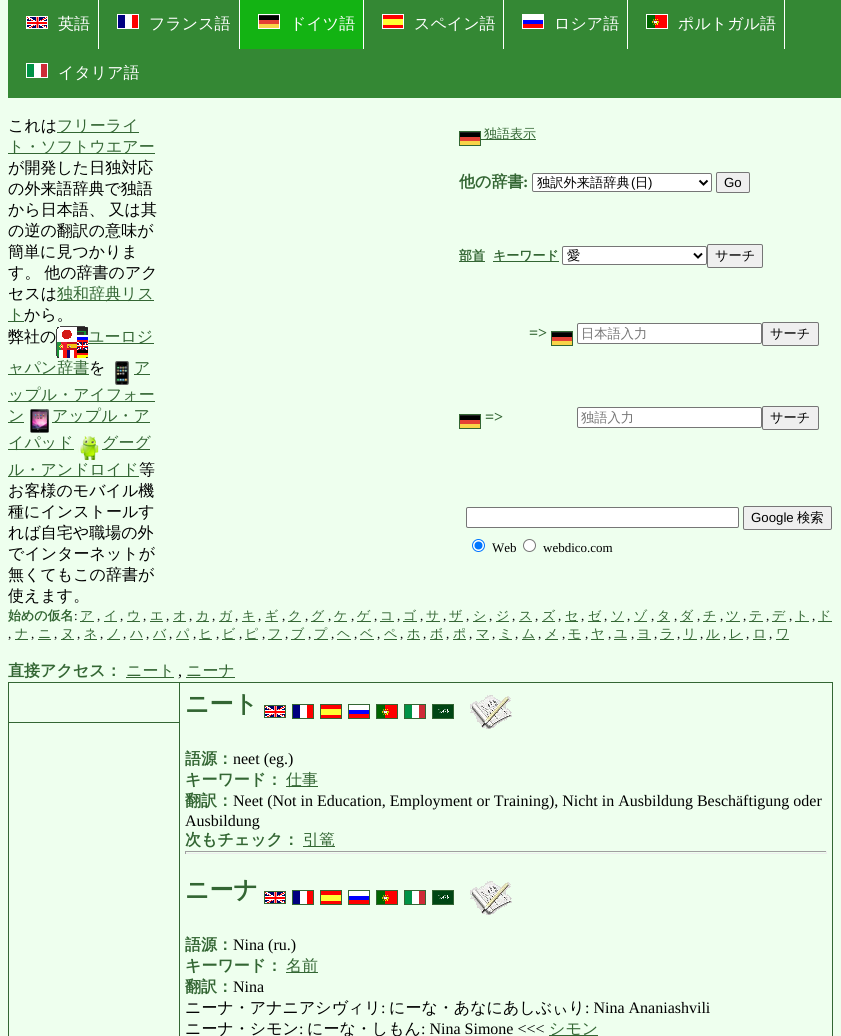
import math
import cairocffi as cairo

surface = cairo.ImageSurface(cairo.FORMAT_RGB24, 841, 1036)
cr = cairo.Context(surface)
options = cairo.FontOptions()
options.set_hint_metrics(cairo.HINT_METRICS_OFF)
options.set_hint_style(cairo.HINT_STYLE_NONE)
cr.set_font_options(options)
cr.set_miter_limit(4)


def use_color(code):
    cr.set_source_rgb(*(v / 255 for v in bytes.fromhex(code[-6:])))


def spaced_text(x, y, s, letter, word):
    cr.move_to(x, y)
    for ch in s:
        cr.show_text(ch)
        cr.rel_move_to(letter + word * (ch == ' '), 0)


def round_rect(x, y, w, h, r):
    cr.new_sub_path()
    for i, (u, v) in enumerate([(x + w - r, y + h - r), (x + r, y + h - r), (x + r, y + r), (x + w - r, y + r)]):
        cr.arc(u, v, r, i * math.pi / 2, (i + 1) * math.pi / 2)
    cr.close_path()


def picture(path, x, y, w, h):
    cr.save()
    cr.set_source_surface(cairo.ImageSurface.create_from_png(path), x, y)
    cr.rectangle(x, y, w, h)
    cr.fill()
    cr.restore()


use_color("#eeffee")
cr.paint()
use_color("#348834")
cr.rectangle(8, 0, 833, 98)
cr.fill()
use_color("#ffffff")
cr.rectangle(98, 0, 1, 49)
cr.fill()
cr.rectangle(26.5, 16.5, 21, 12)
cr.set_line_width(1)
cr.stroke()
cr.select_font_face("WenQuanYi Zen Hei Medium")
cr.set_font_size(16)
cr.move_to(58, 29)
cr.show_text("英語")
picture("img1.png", 27, 17, 20, 11)
cr.rectangle(239, 0, 1, 49)
cr.fill()
cr.rectangle(117.5, 14.5, 21, 14)
cr.stroke()
picture("img2.png", 118, 15, 20, 13)
cr.move_to(149, 29)
cr.show_text("フランス語")
cr.rectangle(363, 0, 1, 49)
cr.fill()
use_color("#13b313")
cr.rectangle(240, 0, 123, 49)
cr.fill()
cr.rectangle(258.5, 14.5, 21, 14)
use_color("#ffffff")
cr.stroke()
picture("img3.png", 259, 15, 20, 13)
cr.move_to(290, 29)
cr.show_text("ドイツ語")
cr.rectangle(503, 0, 1, 49)
cr.fill()
cr.rectangle(382.5, 14.5, 21, 14)
cr.stroke()
picture("img4.png", 383, 15, 20, 13)
cr.move_to(414, 29)
cr.show_text("スペイン語")
cr.rectangle(627, 0, 1, 49)
cr.fill()
cr.rectangle(522.5, 14.5, 21, 14)
cr.stroke()
picture("img5.png", 523, 15, 20, 13)
cr.move_to(554, 29)
cr.show_text("ロシア語")
cr.rectangle(784, 0, 1, 49)
cr.fill()
cr.rectangle(646.5, 14.5, 21, 14)
cr.stroke()
picture("img6.png", 647, 15, 20, 13)
cr.move_to(678, 29)
cr.show_text("ポルトガル語")
cr.rectangle(26.5, 63.5, 21, 14)
cr.stroke()
picture("img7.png", 27, 64, 20, 13)
cr.move_to(58, 78)
cr.show_text("イタリア語")
use_color("#000000")
cr.move_to(8, 131)
cr.show_text("これは")
use_color("#336633")
cr.rectangle(57, 132, 82, 1)
cr.fill()
cr.move_to(57, 131)
cr.show_text("フリーライ")
cr.rectangle(8, 153, 147, 1)
cr.fill()
cr.move_to(8, 152)
cr.show_text("ト・ソフトウエアー")
use_color("#000000")
cr.move_to(8, 173)
cr.show_text("が開発した日独対応")
cr.move_to(8, 194)
cr.show_text("の外来語辞典で独語")
spaced_text(8, 215, "から日本語、 又は其", 0, -1)
cr.move_to(8, 236)
cr.show_text("の逆の翻訳の意味が")
cr.move_to(8, 257)
cr.show_text("簡単に見つかりま")
spaced_text(8, 278, "す。 他の辞書のアク", 0, -1)
cr.move_to(8, 299)
cr.show_text("セスは")
use_color("#336633")
cr.rectangle(57, 300, 97, 1)
cr.fill()
cr.move_to(57, 299)
cr.show_text("独和辞典リス")
cr.rectangle(8, 321, 16, 1)
cr.fill()
cr.move_to(8, 320)
cr.show_text("ト")
use_color("#000000")
cr.move_to(24, 320)
cr.show_text("から。")
cr.move_to(8, 342)
cr.show_text("弊社の")
picture("img8.png", 56, 326, 32, 32)
use_color("#336633")
cr.rectangle(88, 343, 66, 1)
cr.fill()
cr.move_to(88, 342)
cr.show_text("ユーロジ")
cr.rectangle(8, 374, 81, 1)
cr.fill()
cr.move_to(8, 373)
cr.show_text("ャパン辞書")
use_color("#000000")
cr.move_to(89, 373)
cr.show_text("を")
picture("img9.png", 115, 361, 14, 24)
use_color("#336633")
cr.rectangle(134, 374, 16, 1)
cr.fill()
cr.move_to(134, 373)
cr.show_text("ア")
cr.rectangle(8, 401, 147, 1)
cr.fill()
cr.move_to(8, 400)
cr.show_text("ップル・アイフォー")
cr.rectangle(8, 422, 16, 1)
cr.fill()
cr.move_to(8, 421)
cr.show_text("ン")
picture("img10.png", 30, 409, 19, 24)
cr.rectangle(52, 422, 98, 1)
cr.fill()
cr.move_to(52, 421)
cr.show_text("アップル・ア")
cr.rectangle(8, 449, 66, 1)
cr.fill()
cr.move_to(8, 448)
cr.show_text("イパッド")
picture("img11.png", 78, 436, 21, 24)
cr.rectangle(102, 449, 48, 1)
cr.fill()
cr.move_to(102, 448)
cr.show_text("グーグ")
cr.rectangle(8, 476, 131, 1)
cr.fill()
cr.move_to(8, 475)
cr.show_text("ル・アンドロイド")
use_color("#000000")
cr.move_to(139, 475)
cr.show_text("等")
cr.move_to(8, 496)
cr.show_text("お客様のモバイル機")
cr.move_to(8, 517)
cr.show_text("種にインストールす")
cr.move_to(8, 538)
cr.show_text("れば自宅や職場の外")
cr.move_to(8, 559)
cr.show_text("でインターネットが")
cr.move_to(8, 580)
cr.show_text("無くてもこの辞書が")
cr.move_to(8, 601)
cr.show_text("使えます。")
cr.rectangle(459.5, 131.5, 21, 14)
use_color("#336633")
cr.stroke()
picture("img3.png", 460, 132, 20, 13)
cr.rectangle(481, 139, 55, 1)
cr.fill()
cr.set_font_size(13)
cr.move_to(484, 138)
cr.show_text("独語表示")
cr.select_font_face("WenQuanYi Zen Hei", cairo.FONT_SLANT_NORMAL, cairo.FONT_WEIGHT_BOLD)
cr.set_font_size(16)
cr.move_to(459, 187)
cr.show_text("他の辞書")
cr.select_font_face("Liberation Serif", cairo.FONT_SLANT_NORMAL, cairo.FONT_WEIGHT_BOLD)
cr.move_to(523, 187)
cr.show_text(":")
use_color("#ffffff")
round_rect(532.5, 173.5, 179, 18, 1.5)
cr.fill_preserve()
use_color("#767676")
cr.stroke()
cr.new_path()
cr.move_to(699.5, 180.5)
cr.line_to(703.5, 184.5)
cr.line_to(707.5, 180.5)
use_color("#000000")
cr.set_line_width(2)
cr.stroke()
cr.select_font_face("WenQuanYi Zen Hei Medium")
cr.set_font_size(13.25)
cr.move_to(537, 187)
cr.show_text("独訳外来語辞典")
cr.select_font_face("Liberation Sans")
cr.move_to(631, 187)
cr.show_text("(")
cr.select_font_face("WenQuanYi Zen Hei Medium")
cr.move_to(635, 187)
cr.show_text("日")
cr.select_font_face("Liberation Sans")
cr.move_to(648, 187)
cr.show_text(")")
use_color("#efefef")
round_rect(716.5, 172.5, 33, 20, 1.5)
cr.fill_preserve()
use_color("#767676")
cr.set_line_width(1)
cr.stroke()
use_color("#000000")
cr.move_to(724, 187)
cr.show_text("Go")
use_color("#336633")
cr.rectangle(459, 261, 26, 1)
cr.fill()
cr.select_font_face("WenQuanYi Zen Hei", cairo.FONT_SLANT_NORMAL, cairo.FONT_WEIGHT_BOLD)
cr.set_font_size(13)
cr.move_to(459, 260)
cr.show_text("部首")
cr.rectangle(493, 261, 66, 1)
cr.fill()
cr.move_to(493, 260)
cr.show_text("キーワード")
use_color("#ffffff")
round_rect(562.5, 246.5, 144, 18, 1.5)
cr.fill_preserve()
use_color("#767676")
cr.stroke()
cr.new_path()
cr.move_to(694, 253.5)
cr.line_to(698, 257.5)
cr.line_to(702, 253.5)
use_color("#000000")
cr.set_line_width(2)
cr.stroke()
cr.select_font_face("WenQuanYi Zen Hei Medium")
cr.set_font_size(13.25)
cr.move_to(567, 260)
cr.show_text("愛")
use_color("#efefef")
round_rect(707.5, 244.5, 55, 23, 1.5)
cr.fill_preserve()
use_color("#767676")
cr.set_line_width(1)
cr.stroke()
use_color("#000000")
cr.move_to(715, 260)
cr.show_text("サーチ")
cr.select_font_face("Liberation Serif", cairo.FONT_SLANT_NORMAL, cairo.FONT_WEIGHT_BOLD)
cr.set_font_size(16)
use_color("#336633")
cr.move_to(529, 338)
cr.show_text("=>")
cr.rectangle(551.5, 331.5, 21, 14)
cr.stroke()
picture("img3.png", 552, 332, 20, 13)
use_color("#ffffff")
round_rect(577.5, 323.5, 184, 20, 1.5)
cr.fill_preserve()
use_color("#767676")
cr.stroke()
cr.select_font_face("WenQuanYi Zen Hei Medium")
cr.set_font_size(13.25)
use_color("#757575")
cr.move_to(581, 338)
cr.show_text("日本語入力")
use_color("#efefef")
round_rect(762.5, 322.5, 56, 23, 1.5)
cr.fill_preserve()
use_color("#767676")
cr.stroke()
use_color("#000000")
cr.move_to(770, 338)
cr.show_text("サーチ")
cr.rectangle(459.5, 414.5, 21, 14)
use_color("#336633")
cr.stroke()
picture("img3.png", 460, 415, 20, 13)
cr.select_font_face("Liberation Serif", cairo.FONT_SLANT_NORMAL, cairo.FONT_WEIGHT_BOLD)
cr.set_font_size(16)
cr.move_to(485, 422)
cr.show_text("=>")
use_color("#ffffff")
round_rect(577.5, 407.5, 184, 20, 1.5)
cr.fill_preserve()
use_color("#767676")
cr.stroke()
cr.select_font_face("WenQuanYi Zen Hei Medium")
cr.set_font_size(13.25)
use_color("#757575")
cr.move_to(581, 422)
cr.show_text("独語入力")
use_color("#efefef")
round_rect(762.5, 406.5, 56, 23, 1.5)
cr.fill_preserve()
use_color("#767676")
cr.stroke()
use_color("#000000")
cr.move_to(770, 422)
cr.show_text("サーチ")
use_color("#ffffff")
round_rect(466.5, 507.5, 272, 20, 1.5)
cr.fill_preserve()
use_color("#767676")
cr.stroke()
use_color("#efefef")
round_rect(743.5, 506.5, 88, 23, 1.5)
cr.fill_preserve()
use_color("#767676")
cr.stroke()
cr.select_font_face("Liberation Sans")
use_color("#000000")
cr.move_to(751, 522)
cr.show_text("Google")
cr.select_font_face("WenQuanYi Zen Hei Medium")
cr.move_to(797, 522)
cr.show_text("検索")
use_color("#ffffff")
cr.new_path()
cr.arc(478.5, 545.5, 6, 0, 2 * math.pi)
cr.fill_preserve()
use_color("#0075ff")
cr.stroke()
cr.arc(478.5, 545.5, 4, 0, 2 * math.pi)
cr.fill()
cr.select_font_face("Liberation Serif")
cr.set_font_size(13)
use_color("#000000")
cr.move_to(492, 552)
cr.show_text("Web")
use_color("#ffffff")
cr.new_path()
cr.arc(529.5, 545.5, 6, 0, 2 * math.pi)
cr.fill_preserve()
use_color("#767676")
cr.stroke()
use_color("#000000")
cr.move_to(543, 552)
cr.show_text("webdico.com")
cr.select_font_face("WenQuanYi Zen Hei", cairo.FONT_SLANT_NORMAL, cairo.FONT_WEIGHT_BOLD)
use_color("#336633")
cr.move_to(8, 620)
cr.show_text("始めの仮名")
cr.select_font_face("Liberation Serif")
use_color("#000000")
cr.move_to(74, 620)
cr.show_text(":")
use_color("#336633")
cr.rectangle(80, 621, 14, 1)
cr.fill()
cr.select_font_face("WenQuanYi Zen Hei Medium")
cr.move_to(80, 620)
cr.show_text("ア")
cr.select_font_face("Liberation Serif")
use_color("#000000")
cr.move_to(97, 620)
cr.show_text(",")
use_color("#336633")
cr.rectangle(104, 621, 13, 1)
cr.fill()
cr.select_font_face("WenQuanYi Zen Hei Medium")
cr.move_to(104, 620)
cr.show_text("イ")
cr.select_font_face("Liberation Serif")
use_color("#000000")
cr.move_to(120, 620)
cr.show_text(",")
use_color("#336633")
cr.rectangle(127, 621, 13, 1)
cr.fill()
cr.select_font_face("WenQuanYi Zen Hei Medium")
cr.move_to(127, 620)
cr.show_text("ウ")
cr.select_font_face("Liberation Serif")
use_color("#000000")
cr.move_to(143, 620)
cr.show_text(",")
cr.select_font_face("WenQuanYi Zen Hei Medium")
use_color("#336633")
cr.move_to(150, 620)
cr.show_text("エ")
cr.select_font_face("Liberation Serif")
use_color("#000000")
cr.move_to(166, 620)
cr.show_text(",")
use_color("#336633")
cr.rectangle(150, 621, 13, 1)
cr.fill()
cr.rectangle(173, 621, 13, 1)
cr.fill()
cr.select_font_face("WenQuanYi Zen Hei Medium")
cr.move_to(173, 620)
cr.show_text("オ")
cr.select_font_face("Liberation Serif")
use_color("#000000")
cr.move_to(189, 620)
cr.show_text(",")
use_color("#336633")
cr.rectangle(196, 621, 13, 1)
cr.fill()
cr.select_font_face("WenQuanYi Zen Hei Medium")
cr.move_to(196, 620)
cr.show_text("カ")
cr.select_font_face("Liberation Serif")
use_color("#000000")
cr.move_to(212, 620)
cr.show_text(",")
use_color("#336633")
cr.rectangle(219, 621, 13, 1)
cr.fill()
cr.select_font_face("WenQuanYi Zen Hei Medium")
cr.move_to(219, 620)
cr.show_text("ガ")
cr.select_font_face("Liberation Serif")
use_color("#000000")
cr.move_to(235, 620)
cr.show_text(",")
use_color("#336633")
cr.rectangle(242, 621, 13, 1)
cr.fill()
cr.select_font_face("WenQuanYi Zen Hei Medium")
cr.move_to(242, 620)
cr.show_text("キ")
cr.select_font_face("Liberation Serif")
use_color("#000000")
cr.move_to(258, 620)
cr.show_text(",")
use_color("#336633")
cr.rectangle(265, 621, 13, 1)
cr.fill()
cr.select_font_face("WenQuanYi Zen Hei Medium")
cr.move_to(265, 620)
cr.show_text("ギ")
cr.select_font_face("Liberation Serif")
use_color("#000000")
cr.move_to(282, 620)
cr.show_text(",")
use_color("#336633")
cr.rectangle(288, 621, 13, 1)
cr.fill()
cr.select_font_face("WenQuanYi Zen Hei Medium")
cr.move_to(288, 620)
cr.show_text("ク")
cr.select_font_face("Liberation Serif")
use_color("#000000")
cr.move_to(305, 620)
cr.show_text(",")
use_color("#336633")
cr.rectangle(311, 621, 13, 1)
cr.fill()
cr.select_font_face("WenQuanYi Zen Hei Medium")
cr.move_to(311, 620)
cr.show_text("グ")
cr.select_font_face("Liberation Serif")
use_color("#000000")
cr.move_to(328, 620)
cr.show_text(",")
use_color("#336633")
cr.rectangle(334, 621, 13, 1)
cr.fill()
cr.select_font_face("WenQuanYi Zen Hei Medium")
cr.move_to(334, 620)
cr.show_text("ケ")
cr.select_font_face("Liberation Serif")
use_color("#000000")
cr.move_to(351, 620)
cr.show_text(",")
use_color("#336633")
cr.rectangle(357, 621, 14, 1)
cr.fill()
cr.select_font_face("WenQuanYi Zen Hei Medium")
cr.move_to(357, 620)
cr.show_text("ゲ")
cr.select_font_face("Liberation Serif")
use_color("#000000")
cr.move_to(374, 620)
cr.show_text(",")
use_color("#336633")
cr.rectangle(380, 621, 14, 1)
cr.fill()
cr.select_font_face("WenQuanYi Zen Hei Medium")
cr.move_to(380, 620)
cr.show_text("コ")
cr.select_font_face("Liberation Serif")
use_color("#000000")
cr.move_to(397, 620)
cr.show_text(",")
use_color("#336633")
cr.rectangle(403, 621, 14, 1)
cr.fill()
cr.select_font_face("WenQuanYi Zen Hei Medium")
cr.move_to(403, 620)
cr.show_text("ゴ")
cr.select_font_face("Liberation Serif")
use_color("#000000")
cr.move_to(420, 620)
cr.show_text(",")
use_color("#336633")
cr.rectangle(426, 621, 14, 1)
cr.fill()
cr.select_font_face("WenQuanYi Zen Hei Medium")
cr.move_to(426, 620)
cr.show_text("サ")
cr.select_font_face("Liberation Serif")
use_color("#000000")
cr.move_to(443, 620)
cr.show_text(",")
use_color("#336633")
cr.rectangle(449, 621, 14, 1)
cr.fill()
cr.select_font_face("WenQuanYi Zen Hei Medium")
cr.move_to(449, 620)
cr.show_text("ザ")
cr.select_font_face("Liberation Serif")
use_color("#000000")
cr.move_to(466, 620)
cr.show_text(",")
use_color("#336633")
cr.rectangle(473, 621, 13, 1)
cr.fill()
cr.select_font_face("WenQuanYi Zen Hei Medium")
cr.move_to(473, 620)
cr.show_text("シ")
cr.select_font_face("Liberation Serif")
use_color("#000000")
cr.move_to(489, 620)
cr.show_text(",")
use_color("#336633")
cr.rectangle(496, 621, 13, 1)
cr.fill()
cr.select_font_face("WenQuanYi Zen Hei Medium")
cr.move_to(496, 620)
cr.show_text("ジ")
cr.select_font_face("Liberation Serif")
use_color("#000000")
cr.move_to(512, 620)
cr.show_text(",")
cr.select_font_face("WenQuanYi Zen Hei Medium")
use_color("#336633")
cr.move_to(519, 620)
cr.show_text("ス")
cr.select_font_face("Liberation Serif")
use_color("#000000")
cr.move_to(535, 620)
cr.show_text(",")
use_color("#336633")
cr.rectangle(519, 621, 13, 1)
cr.fill()
cr.select_font_face("WenQuanYi Zen Hei Medium")
cr.move_to(542, 620)
cr.show_text("ズ")
cr.select_font_face("Liberation Serif")
use_color("#000000")
cr.move_to(558, 620)
cr.show_text(",")
use_color("#336633")
cr.rectangle(542, 621, 13, 1)
cr.fill()
cr.rectangle(565, 621, 13, 1)
cr.fill()
cr.select_font_face("WenQuanYi Zen Hei Medium")
cr.move_to(565, 620)
cr.show_text("セ")
cr.select_font_face("Liberation Serif")
use_color("#000000")
cr.move_to(581, 620)
cr.show_text(",")
use_color("#336633")
cr.rectangle(588, 621, 13, 1)
cr.fill()
cr.select_font_face("WenQuanYi Zen Hei Medium")
cr.move_to(588, 620)
cr.show_text("ゼ")
cr.select_font_face("Liberation Serif")
use_color("#000000")
cr.move_to(604, 620)
cr.show_text(",")
use_color("#336633")
cr.rectangle(611, 621, 13, 1)
cr.fill()
cr.select_font_face("WenQuanYi Zen Hei Medium")
cr.move_to(611, 620)
cr.show_text("ソ")
cr.select_font_face("Liberation Serif")
use_color("#000000")
cr.move_to(627, 620)
cr.show_text(",")
use_color("#336633")
cr.rectangle(634, 621, 13, 1)
cr.fill()
cr.select_font_face("WenQuanYi Zen Hei Medium")
cr.move_to(634, 620)
cr.show_text("ゾ")
cr.select_font_face("Liberation Serif")
use_color("#000000")
cr.move_to(651, 620)
cr.show_text(",")
use_color("#336633")
cr.rectangle(657, 621, 13, 1)
cr.fill()
cr.select_font_face("WenQuanYi Zen Hei Medium")
cr.move_to(657, 620)
cr.show_text("タ")
cr.select_font_face("Liberation Serif")
use_color("#000000")
cr.move_to(674, 620)
cr.show_text(",")
use_color("#336633")
cr.rectangle(680, 621, 13, 1)
cr.fill()
cr.select_font_face("WenQuanYi Zen Hei Medium")
cr.move_to(680, 620)
cr.show_text("ダ")
cr.select_font_face("Liberation Serif")
use_color("#000000")
cr.move_to(697, 620)
cr.show_text(",")
use_color("#336633")
cr.rectangle(703, 621, 13, 1)
cr.fill()
cr.select_font_face("WenQuanYi Zen Hei Medium")
cr.move_to(703, 620)
cr.show_text("チ")
cr.select_font_face("Liberation Serif")
use_color("#000000")
cr.move_to(720, 620)
cr.show_text(",")
use_color("#336633")
cr.rectangle(726, 621, 14, 1)
cr.fill()
cr.select_font_face("WenQuanYi Zen Hei Medium")
cr.move_to(726, 620)
cr.show_text("ツ")
cr.select_font_face("Liberation Serif")
use_color("#000000")
cr.move_to(743, 620)
cr.show_text(",")
use_color("#336633")
cr.rectangle(749, 621, 14, 1)
cr.fill()
cr.select_font_face("WenQuanYi Zen Hei Medium")
cr.move_to(749, 620)
cr.show_text("テ")
cr.select_font_face("Liberation Serif")
use_color("#000000")
cr.move_to(766, 620)
cr.show_text(",")
use_color("#336633")
cr.rectangle(772, 621, 14, 1)
cr.fill()
cr.select_font_face("WenQuanYi Zen Hei Medium")
cr.move_to(772, 620)
cr.show_text("デ")
cr.select_font_face("Liberation Serif")
use_color("#000000")
cr.move_to(789, 620)
cr.show_text(",")
use_color("#336633")
cr.rectangle(795, 621, 14, 1)
cr.fill()
cr.select_font_face("WenQuanYi Zen Hei Medium")
cr.move_to(795, 620)
cr.show_text("ト")
cr.select_font_face("Liberation Serif")
use_color("#000000")
cr.move_to(812, 620)
cr.show_text(",")
use_color("#336633")
cr.rectangle(818, 621, 14, 1)
cr.fill()
cr.select_font_face("WenQuanYi Zen Hei Medium")
cr.move_to(818, 620)
cr.show_text("ド")
cr.select_font_face("Liberation Serif")
use_color("#000000")
cr.move_to(8, 638)
cr.show_text(",")
use_color("#336633")
cr.rectangle(15, 639, 13, 1)
cr.fill()
cr.select_font_face("WenQuanYi Zen Hei Medium")
cr.move_to(15, 638)
cr.show_text("ナ")
cr.select_font_face("Liberation Serif")
use_color("#000000")
cr.move_to(31, 638)
cr.show_text(",")
cr.select_font_face("WenQuanYi Zen Hei Medium")
use_color("#336633")
cr.move_to(38, 638)
cr.show_text("ニ")
cr.select_font_face("Liberation Serif")
use_color("#000000")
cr.move_to(54, 638)
cr.show_text(",")
use_color("#336633")
cr.rectangle(38, 639, 13, 1)
cr.fill()
cr.rectangle(61, 639, 13, 1)
cr.fill()
cr.select_font_face("WenQuanYi Zen Hei Medium")
cr.move_to(61, 638)
cr.show_text("ヌ")
cr.select_font_face("Liberation Serif")
use_color("#000000")
cr.move_to(77, 638)
cr.show_text(",")
use_color("#336633")
cr.rectangle(84, 639, 13, 1)
cr.fill()
cr.select_font_face("WenQuanYi Zen Hei Medium")
cr.move_to(84, 638)
cr.show_text("ネ")
cr.select_font_face("Liberation Serif")
use_color("#000000")
cr.move_to(100, 638)
cr.show_text(",")
use_color("#336633")
cr.rectangle(107, 639, 13, 1)
cr.fill()
cr.select_font_face("WenQuanYi Zen Hei Medium")
cr.move_to(107, 638)
cr.show_text("ノ")
cr.select_font_face("Liberation Serif")
use_color("#000000")
cr.move_to(123, 638)
cr.show_text(",")
cr.select_font_face("WenQuanYi Zen Hei Medium")
use_color("#336633")
cr.move_to(130, 638)
cr.show_text("ハ")
cr.select_font_face("Liberation Serif")
use_color("#000000")
cr.move_to(146, 638)
cr.show_text(",")
use_color("#336633")
cr.rectangle(130, 639, 13, 1)
cr.fill()
cr.select_font_face("WenQuanYi Zen Hei Medium")
cr.move_to(153, 638)
cr.show_text("バ")
cr.select_font_face("Liberation Serif")
use_color("#000000")
cr.move_to(169, 638)
cr.show_text(",")
use_color("#336633")
cr.rectangle(153, 639, 13, 1)
cr.fill()
cr.rectangle(176, 639, 13, 1)
cr.fill()
cr.select_font_face("WenQuanYi Zen Hei Medium")
cr.move_to(176, 638)
cr.show_text("パ")
cr.select_font_face("Liberation Serif")
use_color("#000000")
cr.move_to(193, 638)
cr.show_text(",")
use_color("#336633")
cr.rectangle(199, 639, 13, 1)
cr.fill()
cr.select_font_face("WenQuanYi Zen Hei Medium")
cr.move_to(199, 638)
cr.show_text("ヒ")
cr.select_font_face("Liberation Serif")
use_color("#000000")
cr.move_to(216, 638)
cr.show_text(",")
use_color("#336633")
cr.rectangle(222, 639, 13, 1)
cr.fill()
cr.select_font_face("WenQuanYi Zen Hei Medium")
cr.move_to(222, 638)
cr.show_text("ビ")
cr.select_font_face("Liberation Serif")
use_color("#000000")
cr.move_to(239, 638)
cr.show_text(",")
use_color("#336633")
cr.rectangle(245, 639, 13, 1)
cr.fill()
cr.select_font_face("WenQuanYi Zen Hei Medium")
cr.move_to(245, 638)
cr.show_text("ピ")
cr.select_font_face("Liberation Serif")
use_color("#000000")
cr.move_to(262, 638)
cr.show_text(",")
use_color("#336633")
cr.rectangle(268, 639, 14, 1)
cr.fill()
cr.select_font_face("WenQuanYi Zen Hei Medium")
cr.move_to(268, 638)
cr.show_text("フ")
cr.select_font_face("Liberation Serif")
use_color("#000000")
cr.move_to(285, 638)
cr.show_text(",")
use_color("#336633")
cr.rectangle(291, 639, 14, 1)
cr.fill()
cr.select_font_face("WenQuanYi Zen Hei Medium")
cr.move_to(291, 638)
cr.show_text("ブ")
cr.select_font_face("Liberation Serif")
use_color("#000000")
cr.move_to(308, 638)
cr.show_text(",")
use_color("#336633")
cr.rectangle(314, 639, 14, 1)
cr.fill()
cr.select_font_face("WenQuanYi Zen Hei Medium")
cr.move_to(314, 638)
cr.show_text("プ")
cr.select_font_face("Liberation Serif")
use_color("#000000")
cr.move_to(331, 638)
cr.show_text(",")
use_color("#336633")
cr.rectangle(337, 639, 14, 1)
cr.fill()
cr.select_font_face("WenQuanYi Zen Hei Medium")
cr.move_to(337, 638)
cr.show_text("ヘ")
cr.select_font_face("Liberation Serif")
use_color("#000000")
cr.move_to(354, 638)
cr.show_text(",")
use_color("#336633")
cr.rectangle(360, 639, 14, 1)
cr.fill()
cr.select_font_face("WenQuanYi Zen Hei Medium")
cr.move_to(360, 638)
cr.show_text("ベ")
cr.select_font_face("Liberation Serif")
use_color("#000000")
cr.move_to(377, 638)
cr.show_text(",")
cr.select_font_face("WenQuanYi Zen Hei Medium")
use_color("#336633")
cr.move_to(384, 638)
cr.show_text("ペ")
cr.select_font_face("Liberation Serif")
use_color("#000000")
cr.move_to(400, 638)
cr.show_text(",")
use_color("#336633")
cr.rectangle(384, 639, 13, 1)
cr.fill()
cr.rectangle(407, 639, 13, 1)
cr.fill()
cr.select_font_face("WenQuanYi Zen Hei Medium")
cr.move_to(407, 638)
cr.show_text("ホ")
cr.select_font_face("Liberation Serif")
use_color("#000000")
cr.move_to(423, 638)
cr.show_text(",")
use_color("#336633")
cr.rectangle(430, 639, 13, 1)
cr.fill()
cr.select_font_face("WenQuanYi Zen Hei Medium")
cr.move_to(430, 638)
cr.show_text("ボ")
cr.select_font_face("Liberation Serif")
use_color("#000000")
cr.move_to(446, 638)
cr.show_text(",")
use_color("#336633")
cr.rectangle(453, 639, 13, 1)
cr.fill()
cr.select_font_face("WenQuanYi Zen Hei Medium")
cr.move_to(453, 638)
cr.show_text("ポ")
cr.select_font_face("Liberation Serif")
use_color("#000000")
cr.move_to(469, 638)
cr.show_text(",")
cr.select_font_face("WenQuanYi Zen Hei Medium")
use_color("#336633")
cr.move_to(476, 638)
cr.show_text("マ")
cr.select_font_face("Liberation Serif")
use_color("#000000")
cr.move_to(492, 638)
cr.show_text(",")
use_color("#336633")
cr.rectangle(476, 639, 13, 1)
cr.fill()
cr.rectangle(499, 639, 13, 1)
cr.fill()
cr.select_font_face("WenQuanYi Zen Hei Medium")
cr.move_to(499, 638)
cr.show_text("ミ")
cr.select_font_face("Liberation Serif")
use_color("#000000")
cr.move_to(515, 638)
cr.show_text(",")
cr.select_font_face("WenQuanYi Zen Hei Medium")
use_color("#336633")
cr.move_to(522, 638)
cr.show_text("ム")
cr.select_font_face("Liberation Serif")
use_color("#000000")
cr.move_to(538, 638)
cr.show_text(",")
use_color("#336633")
cr.rectangle(522, 639, 13, 1)
cr.fill()
cr.rectangle(545, 639, 13, 1)
cr.fill()
cr.select_font_face("WenQuanYi Zen Hei Medium")
cr.move_to(545, 638)
cr.show_text("メ")
cr.select_font_face("Liberation Serif")
use_color("#000000")
cr.move_to(562, 638)
cr.show_text(",")
use_color("#336633")
cr.rectangle(568, 639, 13, 1)
cr.fill()
cr.select_font_face("WenQuanYi Zen Hei Medium")
cr.move_to(568, 638)
cr.show_text("モ")
cr.select_font_face("Liberation Serif")
use_color("#000000")
cr.move_to(585, 638)
cr.show_text(",")
use_color("#336633")
cr.rectangle(591, 639, 13, 1)
cr.fill()
cr.select_font_face("WenQuanYi Zen Hei Medium")
cr.move_to(591, 638)
cr.show_text("ヤ")
cr.select_font_face("Liberation Serif")
use_color("#000000")
cr.move_to(608, 638)
cr.show_text(",")
use_color("#336633")
cr.rectangle(614, 639, 13, 1)
cr.fill()
cr.select_font_face("WenQuanYi Zen Hei Medium")
cr.move_to(614, 638)
cr.show_text("ユ")
cr.select_font_face("Liberation Serif")
use_color("#000000")
cr.move_to(631, 638)
cr.show_text(",")
use_color("#336633")
cr.rectangle(637, 639, 14, 1)
cr.fill()
cr.select_font_face("WenQuanYi Zen Hei Medium")
cr.move_to(637, 638)
cr.show_text("ヨ")
cr.select_font_face("Liberation Serif")
use_color("#000000")
cr.move_to(654, 638)
cr.show_text(",")
use_color("#336633")
cr.rectangle(660, 639, 14, 1)
cr.fill()
cr.select_font_face("WenQuanYi Zen Hei Medium")
cr.move_to(660, 638)
cr.show_text("ラ")
cr.select_font_face("Liberation Serif")
use_color("#000000")
cr.move_to(677, 638)
cr.show_text(",")
use_color("#336633")
cr.rectangle(683, 639, 14, 1)
cr.fill()
cr.select_font_face("WenQuanYi Zen Hei Medium")
cr.move_to(683, 638)
cr.show_text("リ")
cr.select_font_face("Liberation Serif")
use_color("#000000")
cr.move_to(700, 638)
cr.show_text(",")
use_color("#336633")
cr.rectangle(706, 639, 14, 1)
cr.fill()
cr.select_font_face("WenQuanYi Zen Hei Medium")
cr.move_to(706, 638)
cr.show_text("ル")
cr.select_font_face("Liberation Serif")
use_color("#000000")
cr.move_to(723, 638)
cr.show_text(",")
use_color("#336633")
cr.rectangle(729, 639, 14, 1)
cr.fill()
cr.select_font_face("WenQuanYi Zen Hei Medium")
cr.move_to(729, 638)
cr.show_text("レ")
cr.select_font_face("Liberation Serif")
use_color("#000000")
cr.move_to(746, 638)
cr.show_text(",")
cr.select_font_face("WenQuanYi Zen Hei Medium")
use_color("#336633")
cr.move_to(753, 638)
cr.show_text("ロ")
cr.select_font_face("Liberation Serif")
use_color("#000000")
cr.move_to(769, 638)
cr.show_text(",")
use_color("#336633")
cr.rectangle(753, 639, 13, 1)
cr.fill()
cr.rectangle(776, 639, 13, 1)
cr.fill()
cr.select_font_face("WenQuanYi Zen Hei Medium")
cr.move_to(776, 638)
cr.show_text("ワ")
cr.select_font_face("WenQuanYi Zen Hei", cairo.FONT_SLANT_NORMAL, cairo.FONT_WEIGHT_BOLD)
cr.set_font_size(16)
cr.move_to(8, 676)
cr.show_text("直接アクセス：")
cr.rectangle(126, 677, 48, 1)
cr.fill()
cr.select_font_face("WenQuanYi Zen Hei Medium")
cr.move_to(126, 676)
cr.show_text("ニート")
cr.select_font_face("Liberation Serif")
use_color("#000000")
cr.move_to(178, 676)
cr.show_text(",")
use_color("#336633")
cr.rectangle(186, 677, 49, 1)
cr.fill()
cr.select_font_face("WenQuanYi Zen Hei Medium")
cr.move_to(186, 676)
cr.show_text("ニーナ")
cr.rectangle(8, 682, 825, 1)
cr.fill()
cr.rectangle(832, 682, 1, 354)
cr.fill()
cr.rectangle(8, 682, 1, 354)
cr.fill()
cr.rectangle(8, 722, 172, 1)
cr.fill()
cr.rectangle(179, 682, 1, 354)
cr.fill()
cr.select_font_face("WenQuanYi Zen Hei", cairo.FONT_SLANT_NORMAL, cairo.FONT_WEIGHT_BOLD)
cr.set_font_size(24)
cr.move_to(185, 712)
cr.show_text("ニート")
cr.rectangle(264.5, 705.5, 21, 12)
cr.stroke()
cr.rectangle(292.5, 704.5, 21, 14)
cr.stroke()
cr.rectangle(320.5, 704.5, 21, 14)
cr.stroke()
cr.rectangle(348.5, 704.5, 21, 14)
cr.stroke()
cr.rectangle(376.5, 704.5, 21, 14)
cr.stroke()
cr.rectangle(404.5, 704.5, 21, 14)
cr.stroke()
cr.rectangle(432.5, 704.5, 21, 14)
cr.stroke()
picture("img12.png", 470, 695, 42, 34)
picture("img1.png", 265, 706, 20, 11)
picture("img2.png", 293, 705, 20, 13)
picture("img4.png", 321, 705, 20, 13)
picture("img5.png", 349, 705, 20, 13)
picture("img6.png", 377, 705, 20, 13)
picture("img7.png", 405, 705, 20, 13)
picture("img13.png", 433, 705, 20, 13)
cr.set_font_size(16)
cr.move_to(185, 764)
cr.show_text("語源：")
cr.select_font_face("Liberation Serif")
use_color("#000000")
cr.move_to(233, 764)
cr.show_text("neet (eg.)")
cr.select_font_face("WenQuanYi Zen Hei", cairo.FONT_SLANT_NORMAL, cairo.FONT_WEIGHT_BOLD)
use_color("#336633")
cr.move_to(185, 785)
cr.show_text("キーワード：")
cr.rectangle(286, 786, 32, 1)
cr.fill()
cr.select_font_face("WenQuanYi Zen Hei Medium")
cr.move_to(286, 785)
cr.show_text("仕事")
cr.select_font_face("WenQuanYi Zen Hei", cairo.FONT_SLANT_NORMAL, cairo.FONT_WEIGHT_BOLD)
cr.move_to(185, 806)
cr.show_text("翻訳：")
cr.select_font_face("Liberation Serif")
use_color("#000000")
cr.move_to(233, 806)
cr.show_text("Neet (Not in Education, Employment or Training), Nicht in Ausbildung Beschäftigung oder")
cr.move_to(185, 826)
cr.show_text("Ausbildung")
cr.select_font_face("WenQuanYi Zen Hei", cairo.FONT_SLANT_NORMAL, cairo.FONT_WEIGHT_BOLD)
use_color("#336633")
cr.move_to(185, 845)
cr.show_text("次もチェック：")
cr.rectangle(303, 846, 32, 1)
cr.fill()
cr.select_font_face("WenQuanYi Zen Hei Medium")
cr.move_to(303, 845)
cr.show_text("引篭")
use_color("#9f9f9f")
cr.rectangle(185, 851, 642, 1)
cr.fill()
use_color("#eeeeee")
cr.rectangle(826, 851, 1, 3)
cr.fill()
cr.rectangle(185, 853, 642, 1)
cr.fill()
use_color("#9f9f9f")
cr.rectangle(185, 851, 1, 3)
cr.fill()
cr.select_font_face("WenQuanYi Zen Hei", cairo.FONT_SLANT_NORMAL, cairo.FONT_WEIGHT_BOLD)
cr.set_font_size(24)
use_color("#336633")
cr.move_to(185, 898)
cr.show_text("ニーナ")
cr.rectangle(264.5, 891.5, 21, 12)
cr.stroke()
cr.rectangle(292.5, 890.5, 21, 14)
cr.stroke()
cr.rectangle(320.5, 890.5, 21, 14)
cr.stroke()
cr.rectangle(348.5, 890.5, 21, 14)
cr.stroke()
cr.rectangle(376.5, 890.5, 21, 14)
cr.stroke()
cr.rectangle(404.5, 890.5, 21, 14)
cr.stroke()
cr.rectangle(432.5, 890.5, 21, 14)
cr.stroke()
picture("img12.png", 470, 881, 42, 34)
picture("img1.png", 265, 892, 20, 11)
picture("img2.png", 293, 891, 20, 13)
picture("img4.png", 321, 891, 20, 13)
picture("img5.png", 349, 891, 20, 13)
picture("img6.png", 377, 891, 20, 13)
picture("img7.png", 405, 891, 20, 13)
picture("img13.png", 433, 891, 20, 13)
cr.set_font_size(16)
cr.move_to(185, 950)
cr.show_text("語源：")
cr.select_font_face("Liberation Serif")
use_color("#000000")
cr.move_to(233, 950)
cr.show_text("Nina (ru.)")
cr.select_font_face("WenQuanYi Zen Hei", cairo.FONT_SLANT_NORMAL, cairo.FONT_WEIGHT_BOLD)
use_color("#336633")
cr.move_to(185, 971)
cr.show_text("キーワード：")
cr.rectangle(286, 972, 32, 1)
cr.fill()
cr.select_font_face("WenQuanYi Zen Hei Medium")
cr.move_to(286, 971)
cr.show_text("名前")
cr.select_font_face("WenQuanYi Zen Hei", cairo.FONT_SLANT_NORMAL, cairo.FONT_WEIGHT_BOLD)
cr.move_to(185, 992)
cr.show_text("翻訳：")
cr.select_font_face("Liberation Serif")
use_color("#000000")
cr.move_to(233, 992)
cr.show_text("Nina")
cr.select_font_face("WenQuanYi Zen Hei Medium")
cr.move_to(185, 1013)
cr.show_text("ニーナ・アナニアシヴィリ")
cr.select_font_face("Liberation Serif")
cr.move_to(381, 1013)
cr.show_text(":")
cr.select_font_face("WenQuanYi Zen Hei Medium")
cr.move_to(389, 1013)
cr.show_text("にーな・あなにあしぶぃり")
cr.select_font_face("Liberation Serif")
cr.move_to(585, 1013)
cr.show_text(": Nina Ananiashvili")
cr.select_font_face("WenQuanYi Zen Hei Medium")
cr.move_to(185, 1034)
cr.show_text("ニーナ・シモン")
cr.select_font_face("Liberation Serif")
cr.move_to(299, 1034)
cr.show_text(":")
cr.select_font_face("WenQuanYi Zen Hei Medium")
cr.move_to(307, 1034)
cr.show_text("にーな・しもん")
cr.select_font_face("Liberation Serif")
cr.move_to(421, 1034)
cr.show_text(": Nina Simone <<<")
use_color("#336633")
cr.rectangle(549, 1035, 49, 1)
cr.fill()
cr.select_font_face("WenQuanYi Zen Hei Medium")
cr.move_to(549, 1034)
cr.show_text("シモン")
surface.write_to_png("result.png")
